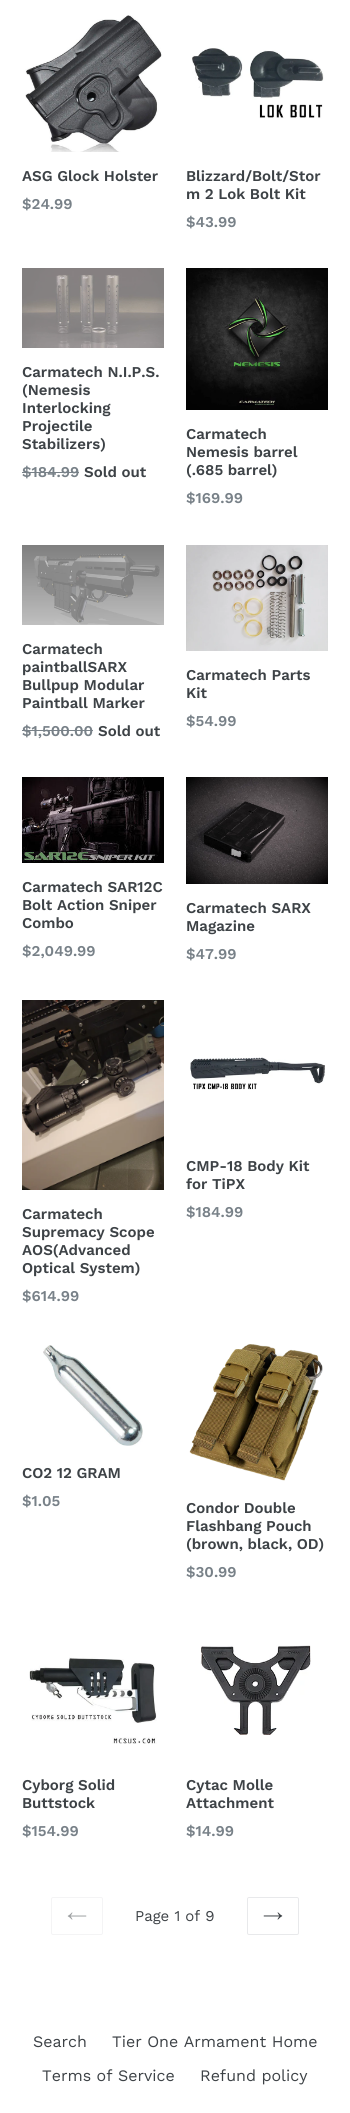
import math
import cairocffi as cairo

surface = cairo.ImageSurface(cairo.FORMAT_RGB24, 350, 2113)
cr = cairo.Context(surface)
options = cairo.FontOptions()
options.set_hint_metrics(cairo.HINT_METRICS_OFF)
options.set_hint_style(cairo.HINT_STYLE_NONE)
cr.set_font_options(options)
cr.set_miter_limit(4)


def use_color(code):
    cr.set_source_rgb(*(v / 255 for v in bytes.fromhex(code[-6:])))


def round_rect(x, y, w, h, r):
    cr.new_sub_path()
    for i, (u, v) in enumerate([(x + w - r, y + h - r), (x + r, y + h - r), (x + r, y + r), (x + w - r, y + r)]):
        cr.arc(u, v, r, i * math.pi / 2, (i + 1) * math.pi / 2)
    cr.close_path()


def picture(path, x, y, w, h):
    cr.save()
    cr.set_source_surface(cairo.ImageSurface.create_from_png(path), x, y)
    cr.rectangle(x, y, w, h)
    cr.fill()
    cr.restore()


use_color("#ffffff")
cr.paint()
picture("img1.png", 25, 15, 137, 137)
cr.select_font_face("Work Sans SemiBold")
cr.set_font_size(15)
use_color("#3d4246")
cr.move_to(22, 181)
cr.show_text("ASG Glock Holster")
use_color("#788188")
cr.move_to(22, 209)
cr.show_text("$24.99")
picture("img2.png", 192, 48, 132, 71)
use_color("#3d4246")
cr.move_to(186, 181)
cr.show_text("Blizzard/Bolt/Stor")
cr.move_to(186, 199)
cr.show_text("m 2 Lok Bolt Kit")
use_color("#788188")
cr.move_to(186, 227)
cr.show_text("$43.99")
picture("img3.png", 22, 268, 142, 80)
use_color("#3d4246")
cr.move_to(22, 377)
cr.show_text("Carmatech N.I.P.S.")
cr.move_to(22, 395)
cr.show_text("(Nemesis")
cr.move_to(22, 413)
cr.show_text("Interlocking")
cr.move_to(22, 431)
cr.show_text("Projectile")
cr.move_to(22, 449)
cr.show_text("Stabilizers)")
use_color("#788188")
cr.move_to(22, 477)
cr.show_text("$184.99")
cr.rectangle(22, 472, 57, 1)
cr.fill()
use_color("#3d4246")
cr.move_to(84, 477)
cr.show_text("Sold out")
picture("img4.png", 186, 268, 142, 142)
cr.move_to(186, 439)
cr.show_text("Carmatech")
cr.move_to(186, 457)
cr.show_text("Nemesis barrel")
cr.move_to(186, 475)
cr.show_text("(.685 barrel)")
use_color("#788188")
cr.move_to(186, 503)
cr.show_text("$169.99")
picture("img5.png", 22, 545, 142, 80)
use_color("#3d4246")
cr.move_to(22, 654)
cr.show_text("Carmatech")
cr.move_to(22, 672)
cr.show_text("paintballSARX")
cr.move_to(22, 690)
cr.show_text("Bullpup Modular")
cr.move_to(22, 708)
cr.show_text("Paintball Marker")
use_color("#788188")
cr.move_to(22, 736)
cr.show_text("$1,500.00")
cr.rectangle(22, 730, 71, 1)
cr.fill()
use_color("#3d4246")
cr.move_to(98, 736)
cr.show_text("Sold out")
picture("img6.png", 186, 545, 142, 106)
cr.move_to(186, 680)
cr.show_text("Carmatech Parts")
cr.move_to(186, 698)
cr.show_text("Kit")
use_color("#788188")
cr.move_to(186, 726)
cr.show_text("$54.99")
picture("img7.png", 22, 777, 142, 86)
use_color("#3d4246")
cr.move_to(22, 892)
cr.show_text("Carmatech SAR12C")
cr.move_to(22, 910)
cr.show_text("Bolt Action Sniper")
cr.move_to(22, 928)
cr.show_text("Combo")
use_color("#788188")
cr.move_to(22, 956)
cr.show_text("$2,049.99")
picture("img8.png", 186, 777, 142, 107)
use_color("#3d4246")
cr.move_to(186, 913)
cr.show_text("Carmatech SARX")
cr.move_to(186, 931)
cr.show_text("Magazine")
use_color("#788188")
cr.move_to(186, 959)
cr.show_text("$47.99")
picture("img9.png", 190, 1057, 135, 33)
use_color("#3d4246")
cr.move_to(186, 1171)
cr.show_text("CMP-18 Body Kit")
cr.move_to(186, 1189)
cr.show_text("for TiPX")
use_color("#788188")
cr.move_to(186, 1217)
cr.show_text("$184.99")
picture("img10.png", 22, 1000, 142, 190)
use_color("#3d4246")
cr.move_to(22, 1219)
cr.show_text("Carmatech")
cr.move_to(22, 1237)
cr.show_text("Supremacy Scope")
cr.move_to(22, 1255)
cr.show_text("AOS(Advanced")
cr.move_to(22, 1273)
cr.show_text("Optical System)")
use_color("#788188")
cr.move_to(22, 1301)
cr.show_text("$614.99")
picture("img11.png", 43, 1345, 100, 101)
use_color("#3d4246")
cr.move_to(22, 1478)
cr.show_text("CO2 12 GRAM")
use_color("#788188")
cr.move_to(22, 1506)
cr.show_text("$1.05")
picture("img12.png", 189, 1344, 134, 137)
use_color("#3d4246")
cr.move_to(186, 1513)
cr.show_text("Condor Double")
cr.move_to(186, 1531)
cr.show_text("Flashbang Pouch")
cr.move_to(186, 1549)
cr.show_text("(brown, black, OD)")
use_color("#788188")
cr.move_to(186, 1577)
cr.show_text("$30.99")
picture("img13.png", 29, 1657, 128, 87)
use_color("#3d4246")
cr.move_to(22, 1790)
cr.show_text("Cyborg Solid")
cr.move_to(22, 1808)
cr.show_text("Buttstock")
use_color("#788188")
cr.move_to(22, 1836)
cr.show_text("$154.99")
picture("img14.png", 200, 1645, 111, 90)
use_color("#3d4246")
cr.move_to(186, 1790)
cr.show_text("Cytac Molle")
cr.move_to(186, 1808)
cr.show_text("Attachment")
use_color("#788188")
cr.move_to(186, 1836)
cr.show_text("$14.99")
round_rect(51.5, 1897.5, 51, 37, 1.5)
use_color("#f4f4f5")
cr.set_line_width(1)
cr.stroke()
picture("img15.png", 67, 1912, 20, 8)
cr.select_font_face("Work Sans")
use_color("#3d4246")
cr.move_to(135, 1921)
cr.show_text("Page 1 of 9")
round_rect(247.5, 1897.5, 51, 37, 1.5)
use_color("#e8e9eb")
cr.stroke()
picture("img16.png", 263, 1912, 20, 8)
cr.set_font_size(16)
use_color("#3d4246")
cr.move_to(33, 2047)
cr.show_text("Search")
cr.move_to(112, 2047)
cr.show_text("Tier One Armament Home")
cr.move_to(42, 2081)
cr.show_text("Terms of Service")
cr.move_to(200, 2081)
cr.show_text("Refund policy")
surface.write_to_png("result.png")
